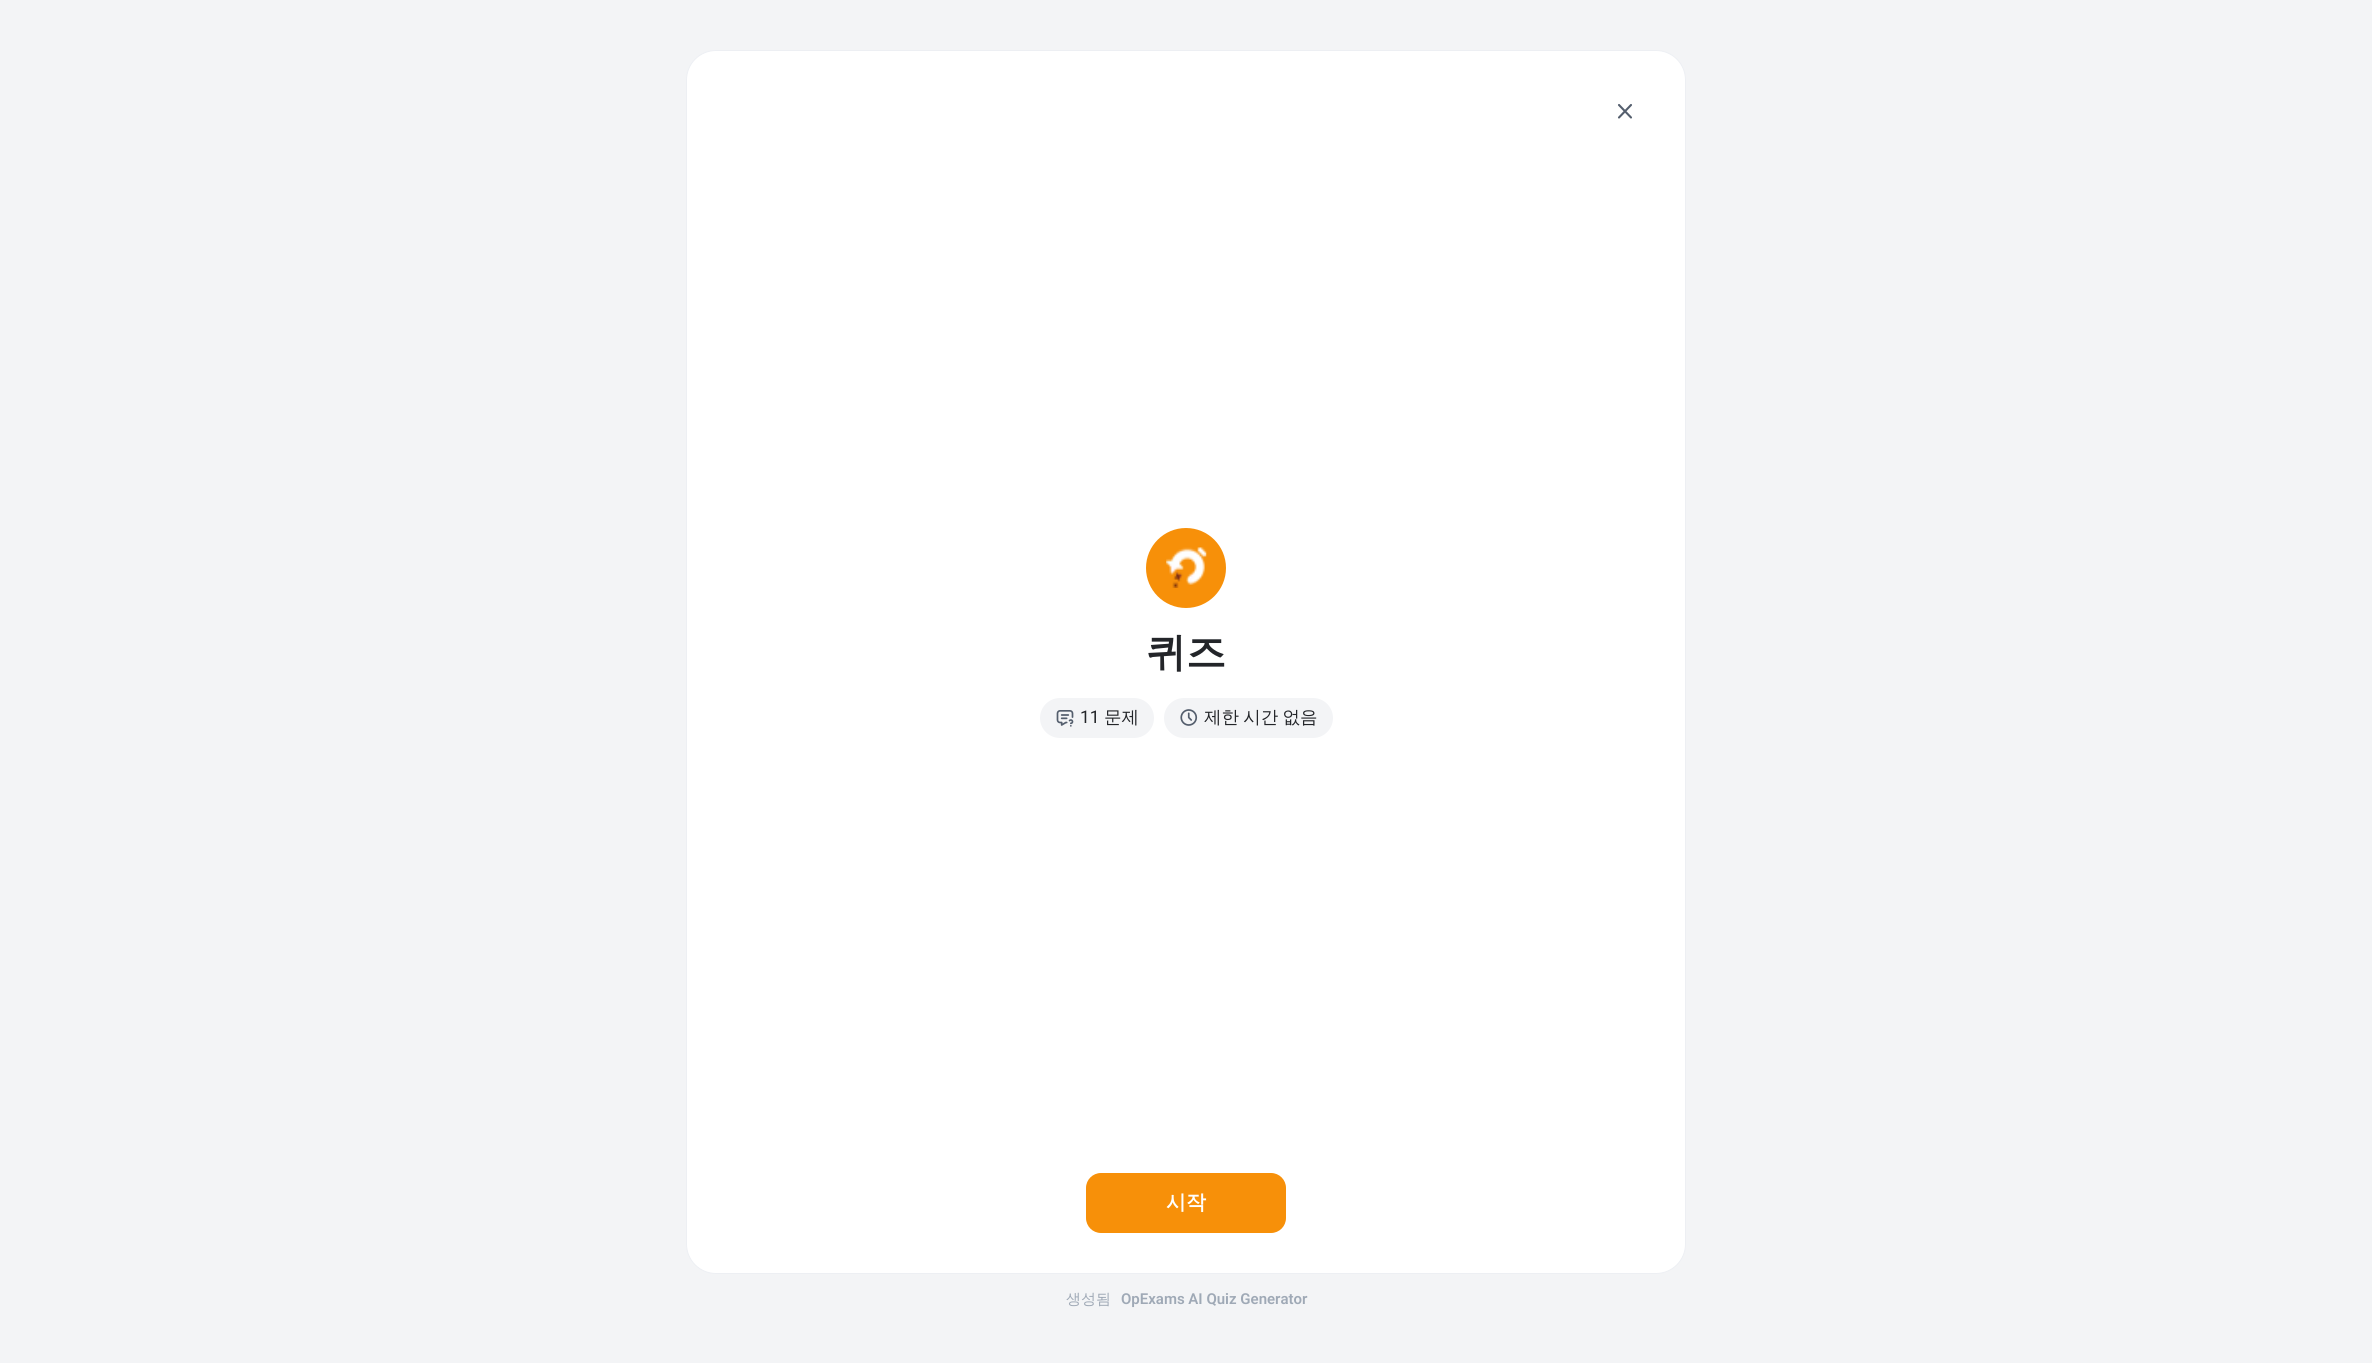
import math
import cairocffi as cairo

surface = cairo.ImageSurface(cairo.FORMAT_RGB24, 2372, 1363)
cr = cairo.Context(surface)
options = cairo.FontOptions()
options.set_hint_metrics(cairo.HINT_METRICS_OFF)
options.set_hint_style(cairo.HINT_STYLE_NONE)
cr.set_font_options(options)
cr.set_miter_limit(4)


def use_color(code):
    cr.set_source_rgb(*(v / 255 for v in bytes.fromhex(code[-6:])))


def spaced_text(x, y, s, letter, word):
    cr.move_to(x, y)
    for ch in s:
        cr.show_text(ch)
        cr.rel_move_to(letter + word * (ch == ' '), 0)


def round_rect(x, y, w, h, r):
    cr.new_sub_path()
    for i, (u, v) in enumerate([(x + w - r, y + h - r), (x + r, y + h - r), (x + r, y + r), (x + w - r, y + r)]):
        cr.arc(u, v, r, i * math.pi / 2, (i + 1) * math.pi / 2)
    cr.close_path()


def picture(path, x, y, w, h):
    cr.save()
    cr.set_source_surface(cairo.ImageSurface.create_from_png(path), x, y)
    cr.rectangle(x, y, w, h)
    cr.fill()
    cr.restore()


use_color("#f3f4f6")
cr.paint()
use_color("#ffffff")
round_rect(686.5, 50.5, 999, 1223, 29.5)
cr.fill_preserve()
use_color("#edeff3")
cr.set_line_width(1)
cr.stroke()
cr.new_path()
cr.move_to(1631, 105)
cr.line_to(1619, 117.5)
cr.move_to(1619, 105)
cr.line_to(1631, 117.5)
use_color("#545e6d")
cr.set_line_width(2.1)
cr.set_line_cap(cairo.LINE_CAP_ROUND)
cr.set_line_join(cairo.LINE_JOIN_ROUND)
cr.stroke()
use_color("#f79009")
cr.arc(1186, 568, 40, 0, 2 * math.pi)
cr.fill()
picture("img1.png", 1166, 547, 41, 41)
cr.select_font_face("WenQuanYi Zen Hei", cairo.FONT_SLANT_NORMAL, cairo.FONT_WEIGHT_BOLD)
cr.set_font_size(40)
use_color("#232529")
cr.move_to(1146, 666)
cr.show_text("퀴즈")
use_color("#f3f4f6")
round_rect(1040, 698, 114, 40, 20)
cr.fill()
picture("img2.png", 1056, 710, 18, 17)
cr.select_font_face("Roboto")
cr.set_font_size(17.5)
use_color("#232529")
cr.move_to(1080, 723)
cr.show_text("11")
cr.select_font_face("WenQuanYi Zen Hei Medium")
cr.move_to(1104, 723)
cr.show_text("문제")
use_color("#f3f4f6")
round_rect(1164, 698, 169, 40, 20)
cr.fill()
picture("img3.png", 1180, 709, 18, 17)
use_color("#232529")
spaced_text(1204, 723, "제한 시간 없음", 0, -1)
use_color("#f79009")
round_rect(1086, 1173, 200, 60, 15)
cr.fill()
cr.select_font_face("WenQuanYi Zen Hei", cairo.FONT_SLANT_NORMAL, cairo.FONT_WEIGHT_BOLD)
cr.set_font_size(20)
use_color("#ffffff")
cr.move_to(1166, 1209)
cr.show_text("시작")
cr.select_font_face("WenQuanYi Zen Hei Medium")
cr.set_font_size(15)
use_color("#9fa9b6")
cr.move_to(1066, 1304)
cr.show_text("생성됨")
cr.select_font_face("Roboto SemiBold")
cr.move_to(1121, 1304)
cr.show_text("OpExams AI Quiz Generator")
surface.write_to_png("result.png")
